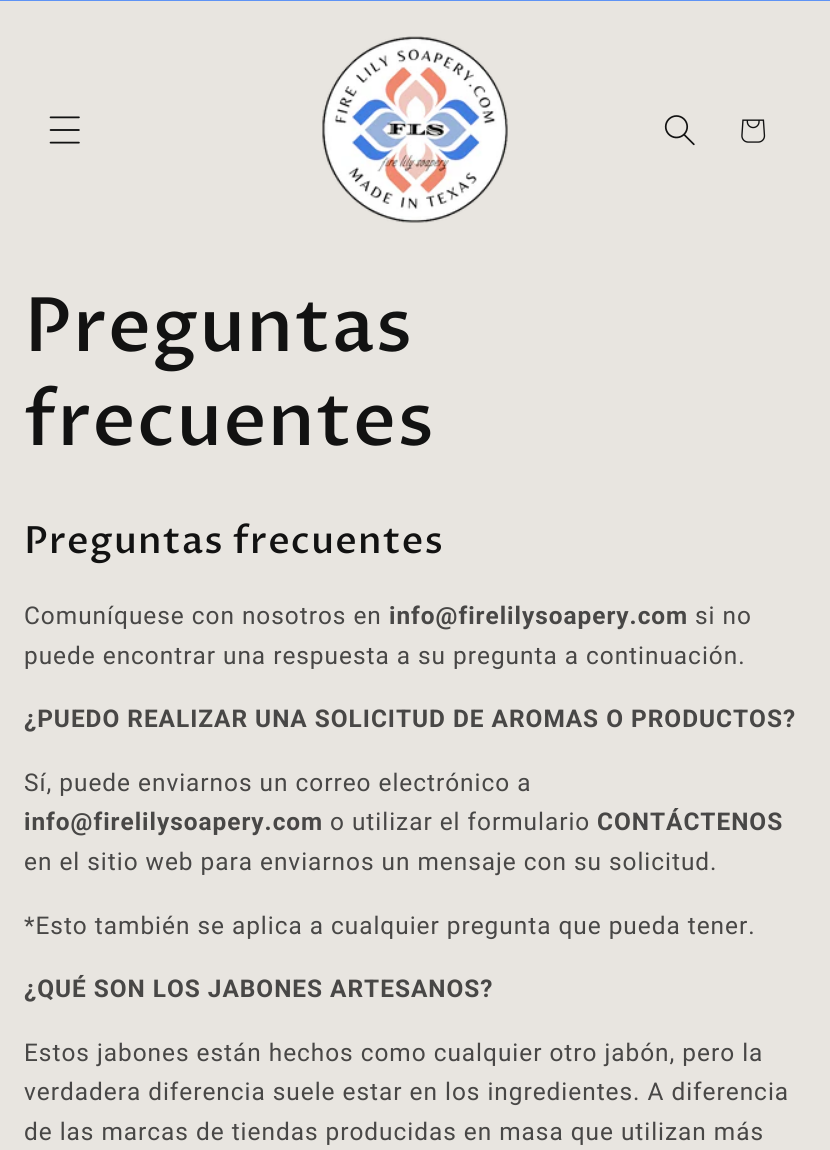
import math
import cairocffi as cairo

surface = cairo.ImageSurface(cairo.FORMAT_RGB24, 830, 1150)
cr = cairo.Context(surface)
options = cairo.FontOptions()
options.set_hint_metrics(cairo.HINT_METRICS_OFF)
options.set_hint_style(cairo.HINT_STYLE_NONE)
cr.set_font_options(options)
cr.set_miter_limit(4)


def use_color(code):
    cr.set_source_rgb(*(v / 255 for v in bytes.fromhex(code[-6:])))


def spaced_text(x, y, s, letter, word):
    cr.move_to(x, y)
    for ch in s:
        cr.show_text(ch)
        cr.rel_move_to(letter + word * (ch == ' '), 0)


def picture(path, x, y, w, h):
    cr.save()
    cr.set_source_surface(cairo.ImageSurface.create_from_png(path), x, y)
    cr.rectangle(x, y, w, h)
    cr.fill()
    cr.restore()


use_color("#e8e5e0")
cr.paint()
use_color("#5e93f5")
cr.rectangle(0, 0, 830, 1)
cr.fill()
picture("img1.png", 49, 116, 31, 28)
picture("img2.png", 322, 36, 186, 187)
picture("img3.png", 664, 115, 31, 31)
picture("img4.png", 741, 119, 25, 24)
cr.select_font_face("Proza Libre Medium")
cr.set_font_size(75)
use_color("#121212")
spaced_text(24, 351, "Preguntas", 1.1, 0)
spaced_text(24, 445, "frecuentes", 1.1, 0)
cr.set_font_size(37.5)
spaced_text(24, 553, "Preguntas frecuentes", 1.1, 0)
cr.select_font_face("Roboto")
cr.set_font_size(24.4)
use_color("#484746")
spaced_text(24, 624, "Comuníquese con nosotros en", 0.98, 0)
cr.select_font_face("Roboto", cairo.FONT_SLANT_NORMAL, cairo.FONT_WEIGHT_BOLD)
spaced_text(389, 624, "info@firelilysoapery.com", 0.98, 0)
cr.select_font_face("Roboto")
spaced_text(695, 624, "si no", 0.98, 0)
spaced_text(24, 664, "puede encontrar una respuesta a su pregunta a continuación.", 0.98, 0)
cr.select_font_face("Roboto", cairo.FONT_SLANT_NORMAL, cairo.FONT_WEIGHT_BOLD)
spaced_text(24, 727, "¿PUEDO REALIZAR UNA SOLICITUD DE AROMAS O PRODUCTOS?", 0.98, 0)
cr.select_font_face("Roboto")
spaced_text(24, 791, "Sí, puede enviarnos un correo electrónico a", 0.98, 0)
cr.select_font_face("Roboto", cairo.FONT_SLANT_NORMAL, cairo.FONT_WEIGHT_BOLD)
spaced_text(24, 830, "info@firelilysoapery.com", 0.98, 0)
cr.select_font_face("Roboto")
spaced_text(330, 830, "o utilizar el formulario", 0.98, 0)
cr.select_font_face("Roboto", cairo.FONT_SLANT_NORMAL, cairo.FONT_WEIGHT_BOLD)
spaced_text(597, 830, "CONTÁCTENOS", 0.98, 0)
cr.select_font_face("Roboto")
spaced_text(24, 870, "en el sitio web para enviarnos un mensaje con su solicitud.", 0.98, 0)
spaced_text(24, 934, "*Esto también se aplica a cualquier pregunta que pueda tener.", 0.98, 0)
cr.select_font_face("Roboto", cairo.FONT_SLANT_NORMAL, cairo.FONT_WEIGHT_BOLD)
spaced_text(24, 997, "¿QUÉ SON LOS JABONES ARTESANOS?", 0.98, 0)
cr.select_font_face("Roboto")
spaced_text(24, 1061, "Estos jabones están hechos como cualquier otro jabón, pero la", 0.98, 0)
spaced_text(24, 1100, "verdadera diferencia suele estar en los ingredientes. A diferencia", 0.98, 0)
spaced_text(24, 1140, "de las marcas de tiendas producidas en masa que utilizan más", 0.98, 0)
surface.write_to_png("result.png")
